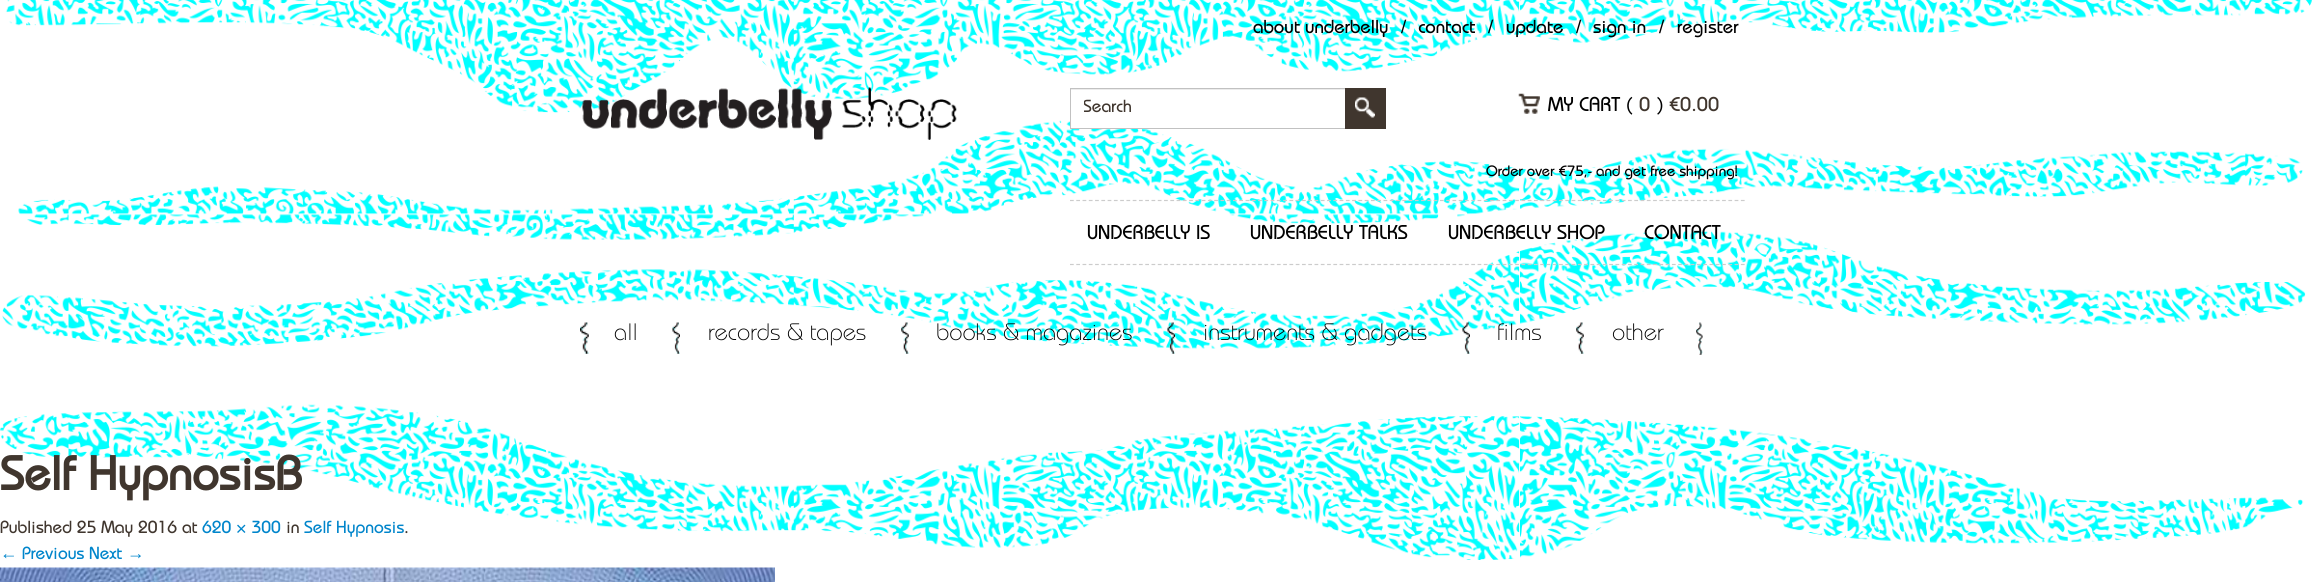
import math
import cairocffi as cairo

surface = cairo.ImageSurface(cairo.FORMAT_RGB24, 2313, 582)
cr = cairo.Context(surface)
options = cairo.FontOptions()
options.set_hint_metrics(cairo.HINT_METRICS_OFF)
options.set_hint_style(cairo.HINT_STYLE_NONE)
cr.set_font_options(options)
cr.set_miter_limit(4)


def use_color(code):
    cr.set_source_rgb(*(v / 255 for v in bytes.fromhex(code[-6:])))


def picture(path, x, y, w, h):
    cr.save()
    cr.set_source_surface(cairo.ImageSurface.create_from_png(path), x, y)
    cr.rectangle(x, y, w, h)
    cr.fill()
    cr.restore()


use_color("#ffffff")
cr.paint()
picture("img1.png", 0, 0, 2312, 560)
cr.select_font_face("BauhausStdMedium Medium")
cr.set_font_size(18.75)
use_color("#000000")
cr.move_to(1253, 33)
cr.show_text("about underbelly")
cr.move_to(1401, 33)
cr.show_text("/")
cr.move_to(1418, 33)
cr.show_text("contact")
cr.move_to(1488, 33)
cr.show_text("/")
cr.move_to(1506, 33)
cr.show_text("update")
cr.move_to(1576, 33)
cr.show_text("/")
cr.move_to(1593, 33)
cr.show_text("sign in")
cr.move_to(1659, 33)
cr.show_text("/")
cr.move_to(1677, 33)
cr.show_text("register")
picture("img2.png", 582, 87, 375, 53)
use_color("#ffffff")
cr.rectangle(1071, 119, 67, 9)
cr.fill()
use_color("#ececec")
cr.rectangle(1071, 89, 275, 1)
cr.fill()
cr.rectangle(1070.5, 88.5, 277, 40)
use_color("#c1c1c1")
cr.set_line_width(1)
cr.stroke()
cr.save()
cr.rectangle(1084, 98, 250, 21)
cr.clip()
cr.set_font_size(17.5)
use_color("#40362e")
cr.move_to(1083, 112)
cr.show_text("Search")
cr.restore()
use_color("#40362e")
cr.rectangle(1345, 88, 41, 41)
cr.fill()
picture("img3.png", 1355, 97, 20, 21)
picture("img4.png", 1518, 93, 22, 21)
cr.set_font_size(20)
use_color("#000000")
cr.move_to(1548, 111)
cr.show_text("MY CART (")
use_color("#40362e")
cr.move_to(1639, 111)
cr.show_text("0")
use_color("#000000")
cr.move_to(1656, 111)
cr.show_text(")")
use_color("#40362e")
cr.move_to(1669, 111)
cr.show_text("€0.00")
cr.set_font_size(15)
use_color("#000000")
cr.move_to(1486, 176)
cr.show_text("Order over €75,- and get free shipping!")
cr.new_path()
cr.move_to(1070, 200.5)
cr.line_to(1745, 200.5)
use_color("#cccccc")
cr.set_line_width(1.2)
cr.set_dash([3.75, 2.52])
cr.stroke()
cr.new_path()
cr.move_to(1070, 264.5)
cr.line_to(1745, 264.5)
cr.stroke()
cr.set_font_size(20)
use_color("#000000")
cr.move_to(1087, 239)
cr.show_text("UNDERBELLY IS")
cr.move_to(1250, 239)
cr.show_text("UNDERBELLY TALKS")
cr.move_to(1448, 239)
cr.show_text("UNDERBELLY SHOP")
cr.move_to(1644, 239)
cr.show_text("CONTACT")
picture("img5.png", 580, 322, 9, 32)
cr.select_font_face("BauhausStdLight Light")
cr.set_font_size(23.75)
cr.move_to(614, 340)
cr.show_text("all")
picture("img6.png", 672, 322, 8, 32)
cr.move_to(708, 340)
cr.show_text("records & tapes")
picture("img7.png", 901, 322, 8, 32)
cr.move_to(936, 340)
cr.show_text("books & magazines")
picture("img8.png", 1167, 322, 8, 32)
cr.move_to(1203, 340)
cr.show_text("instruments & gadgets")
picture("img9.png", 1462, 322, 8, 32)
cr.move_to(1497, 340)
cr.show_text("films")
picture("img7.png", 1576, 322, 8, 32)
cr.move_to(1612, 340)
cr.show_text("other")
picture("img10.png", 1696, 322, 7, 33)
cr.select_font_face("BauhausStdMedium", cairo.FONT_SLANT_NORMAL, cairo.FONT_WEIGHT_BOLD)
cr.set_font_size(48)
use_color("#40362e")
cr.move_to(0, 490)
cr.show_text("Self HypnosisB")
cr.select_font_face("BauhausStdMedium Medium")
cr.set_font_size(17.5)
cr.move_to(0, 533)
cr.show_text("Published 25 May 2016 at")
use_color("#0085cb")
cr.move_to(202, 533)
cr.show_text("620 × 300")
use_color("#40362e")
cr.move_to(286, 533)
cr.show_text("in")
use_color("#0085cb")
cr.move_to(304, 533)
cr.show_text("Self Hypnosis")
use_color("#40362e")
cr.move_to(404, 533)
cr.show_text(".")
cr.select_font_face("Liberation Serif")
use_color("#0085cb")
cr.move_to(0, 559)
cr.show_text("←")
cr.select_font_face("BauhausStdMedium Medium")
cr.move_to(22, 559)
cr.show_text("Previous Next")
cr.select_font_face("Liberation Serif")
cr.move_to(127, 559)
cr.show_text("→")
picture("img11.png", 0, 567, 775, 15)
surface.write_to_png("result.png")
